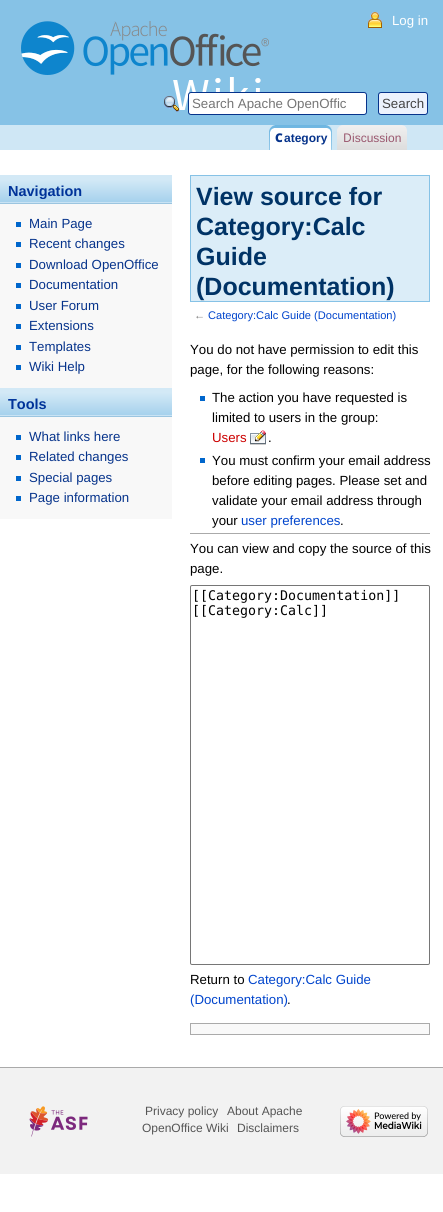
import math
import cairocffi as cairo

surface = cairo.ImageSurface(cairo.FORMAT_RGB24, 443, 1212)
cr = cairo.Context(surface)
options = cairo.FontOptions()
options.set_hint_metrics(cairo.HINT_METRICS_OFF)
options.set_hint_style(cairo.HINT_STYLE_NONE)
cr.set_font_options(options)
cr.set_miter_limit(4)


def use_color(code):
    cr.set_source_rgb(*(v / 255 for v in bytes.fromhex(code[-6:])))


def round_rect(x, y, w, h, r):
    cr.new_sub_path()
    for i, (u, v) in enumerate([(x + w - r, y + h - r), (x + r, y + h - r), (x + r, y + r), (x + w - r, y + r)]):
        cr.arc(u, v, r, i * math.pi / 2, (i + 1) * math.pi / 2)
    cr.close_path()


def picture(path, x, y, w, h):
    cr.save()
    cr.set_source_surface(cairo.ImageSurface.create_from_png(path), x, y)
    cr.rectangle(x, y, w, h)
    cr.fill()
    cr.restore()


use_color("#ffffff")
cr.paint()
use_color("#86c2e6")
cr.rectangle(0, 0, 443, 21)
cr.fill()
picture("img1.png", 0, 21, 443, 129)
picture("img2.png", 368, 12, 14, 16)
cr.select_font_face("Liberation Sans")
cr.set_font_size(13.25)
use_color("#ffffff")
cr.move_to(392, 25)
cr.show_text("Log in")
picture("img3.png", 164, 96, 15, 16)
round_rect(188.5, 92.5, 178, 22, 2.5)
cr.fill_preserve()
use_color("#06338b")
cr.set_line_width(1)
cr.stroke()
cr.set_font_size(13.3)
use_color("#757575")
cr.move_to(192, 108)
cr.show_text("Search Apache OpenOffic")
use_color("#ecf2fd")
round_rect(378.5, 92.5, 49, 22, 2.5)
cr.fill_preserve()
use_color("#06338b")
cr.stroke()
use_color("#444444")
cr.move_to(382, 108)
cr.show_text("Search")
picture("img4.png", 269, 125, 57, 25)
cr.select_font_face("Noto Sans Black")
cr.set_font_size(12)
use_color("#06338b")
cr.move_to(275, 142)
cr.show_text("C")
picture("img5.png", 326, 125, 6, 25)
cr.select_font_face("Liberation Sans", cairo.FONT_SLANT_NORMAL, cairo.FONT_WEIGHT_BOLD)
cr.move_to(284, 142)
cr.show_text("ategory")
picture("img6.png", 337, 125, 70, 25)
cr.select_font_face("Noto Sans")
use_color("#9a576e")
cr.move_to(343, 142)
cr.show_text("D")
picture("img7.png", 402, 125, 5, 5)
cr.select_font_face("Liberation Sans")
cr.move_to(352, 142)
cr.show_text("iscussion")
picture("img8.png", 0, 175, 172, 29)
cr.select_font_face("Liberation Sans", cairo.FONT_SLANT_NORMAL, cairo.FONT_WEIGHT_BOLD)
cr.set_font_size(14.5)
use_color("#003399")
cr.move_to(8, 196)
cr.show_text("Navigation")
use_color("#f8f8f8")
cr.rectangle(0, 204, 172, 184)
cr.fill()
use_color("#0066cc")
cr.rectangle(16, 222, 5, 5)
cr.fill()
cr.select_font_face("Liberation Sans")
cr.set_font_size(13.25)
use_color("#06338b")
cr.move_to(29, 228)
cr.show_text("Main Page")
use_color("#0066cc")
cr.rectangle(16, 242, 5, 5)
cr.fill()
use_color("#06338b")
cr.move_to(29, 248)
cr.show_text("Recent changes")
use_color("#0066cc")
cr.rectangle(16, 263, 5, 5)
cr.fill()
use_color("#06338b")
cr.move_to(29, 269)
cr.show_text("Download OpenOffice")
use_color("#0066cc")
cr.rectangle(16, 283, 5, 5)
cr.fill()
use_color("#06338b")
cr.move_to(29, 289)
cr.show_text("Documentation")
use_color("#0066cc")
cr.rectangle(16, 304, 5, 5)
cr.fill()
use_color("#06338b")
cr.move_to(29, 310)
cr.show_text("User Forum")
use_color("#0066cc")
cr.rectangle(16, 324, 5, 5)
cr.fill()
use_color("#06338b")
cr.move_to(29, 330)
cr.show_text("Extensions")
use_color("#0066cc")
cr.rectangle(16, 345, 5, 5)
cr.fill()
use_color("#06338b")
cr.move_to(29, 351)
cr.show_text("Templates")
use_color("#0066cc")
cr.rectangle(16, 365, 5, 5)
cr.fill()
use_color("#06338b")
cr.move_to(29, 371)
cr.show_text("Wiki Help")
use_color("#f8f8f8")
cr.rectangle(0, 417, 172, 102)
cr.fill()
picture("img8.png", 0, 388, 172, 29)
cr.select_font_face("Liberation Sans", cairo.FONT_SLANT_NORMAL, cairo.FONT_WEIGHT_BOLD)
cr.set_font_size(14.5)
use_color("#003399")
cr.move_to(8, 409)
cr.show_text("Tools")
use_color("#0066cc")
cr.rectangle(16, 435, 5, 5)
cr.fill()
cr.select_font_face("Liberation Sans")
cr.set_font_size(13.25)
use_color("#06338b")
cr.move_to(29, 441)
cr.show_text("What links here")
use_color("#0066cc")
cr.rectangle(16, 455, 5, 5)
cr.fill()
use_color("#06338b")
cr.move_to(29, 461)
cr.show_text("Related changes")
use_color("#0066cc")
cr.rectangle(16, 476, 5, 5)
cr.fill()
use_color("#06338b")
cr.move_to(29, 482)
cr.show_text("Special pages")
use_color("#0066cc")
cr.rectangle(16, 496, 5, 5)
cr.fill()
use_color("#06338b")
cr.move_to(29, 502)
cr.show_text("Page information")
use_color("#dbedf8")
cr.rectangle(190.5, 175.5, 239, 126)
cr.fill_preserve()
use_color("#86c2e6")
cr.stroke()
cr.select_font_face("Liberation Sans", cairo.FONT_SLANT_NORMAL, cairo.FONT_WEIGHT_BOLD)
cr.set_font_size(25)
use_color("#003366")
cr.move_to(196, 205)
cr.show_text("View source for")
cr.move_to(196, 235)
cr.show_text("Category:Calc")
cr.move_to(196, 265)
cr.show_text("Guide")
cr.move_to(196, 295)
cr.show_text("(Documentation)")
cr.select_font_face("Liberation Sans")
cr.set_font_size(11.1)
use_color("#7d7d7d")
cr.move_to(194, 319)
cr.show_text("←")
use_color("#0044cc")
cr.move_to(208, 319)
cr.show_text("Category:Calc Guide (Documentation)")
cr.set_font_size(13.25)
use_color("#000000")
cr.move_to(190, 354)
cr.show_text("You do not have permission to edit this")
cr.move_to(190, 374)
cr.show_text("page, for the following reasons:")
use_color("#0066cc")
cr.rectangle(200, 396, 5, 5)
cr.fill()
use_color("#000000")
cr.move_to(212, 402)
cr.show_text("The action you have requested is")
cr.move_to(212, 422)
cr.show_text("limited to users in the group:")
use_color("#cc0000")
cr.move_to(212, 442)
cr.show_text("Users")
picture("img9.png", 250, 430, 16, 15)
use_color("#000000")
cr.move_to(268, 442)
cr.show_text(".")
use_color("#0066cc")
cr.rectangle(200, 458, 5, 5)
cr.fill()
use_color("#000000")
cr.move_to(212, 465)
cr.show_text("You must confirm your email address")
cr.move_to(212, 485)
cr.show_text("before editing pages. Please set and")
cr.move_to(212, 505)
cr.show_text("validate your email address through")
cr.move_to(212, 525)
cr.show_text("your")
use_color("#0044cc")
cr.move_to(241, 525)
cr.show_text("user preferences")
use_color("#000000")
cr.move_to(340, 525)
cr.show_text(".")
use_color("#aaaaaa")
cr.rectangle(190, 533, 240, 1)
cr.fill()
use_color("#000000")
cr.move_to(190, 553)
cr.show_text("You can view and copy the source of this")
cr.move_to(190, 573)
cr.show_text("page.")
round_rect(190.5, 585.5, 239, 379, 1.5)
use_color("#767676")
cr.stroke()
cr.select_font_face("DejaVu Sans Mono")
cr.set_font_size(13.3)
use_color("#000000")
cr.move_to(192, 600)
cr.show_text("[[Category:Documentation]]")
cr.move_to(192, 615)
cr.show_text("[[Category:Calc]]")
cr.select_font_face("Liberation Sans")
cr.set_font_size(13.25)
cr.move_to(190, 984)
cr.show_text("Return to")
use_color("#0044cc")
cr.move_to(248, 984)
cr.show_text("Category:Calc Guide")
cr.move_to(190, 1004)
cr.show_text("(Documentation)")
use_color("#000000")
cr.move_to(287, 1004)
cr.show_text(".")
use_color("#f9f9f9")
cr.rectangle(190.5, 1023.5, 239, 11)
cr.fill_preserve()
use_color("#aaaaaa")
cr.stroke()
use_color("#f2f2f2")
cr.rectangle(0, 1068, 443, 106)
cr.fill()
use_color("#aaaaaa")
cr.rectangle(0, 1067, 443, 1)
cr.fill()
picture("img10.png", 29, 1106, 59, 31)
cr.set_font_size(12)
use_color("#555555")
cr.move_to(145, 1115)
cr.show_text("Privacy policy")
cr.move_to(227, 1115)
cr.show_text("About Apache")
cr.move_to(142, 1132)
cr.show_text("OpenOffice Wiki")
cr.move_to(237, 1132)
cr.show_text("Disclaimers")
picture("img11.png", 340, 1106, 88, 31)
surface.write_to_png("result.png")
